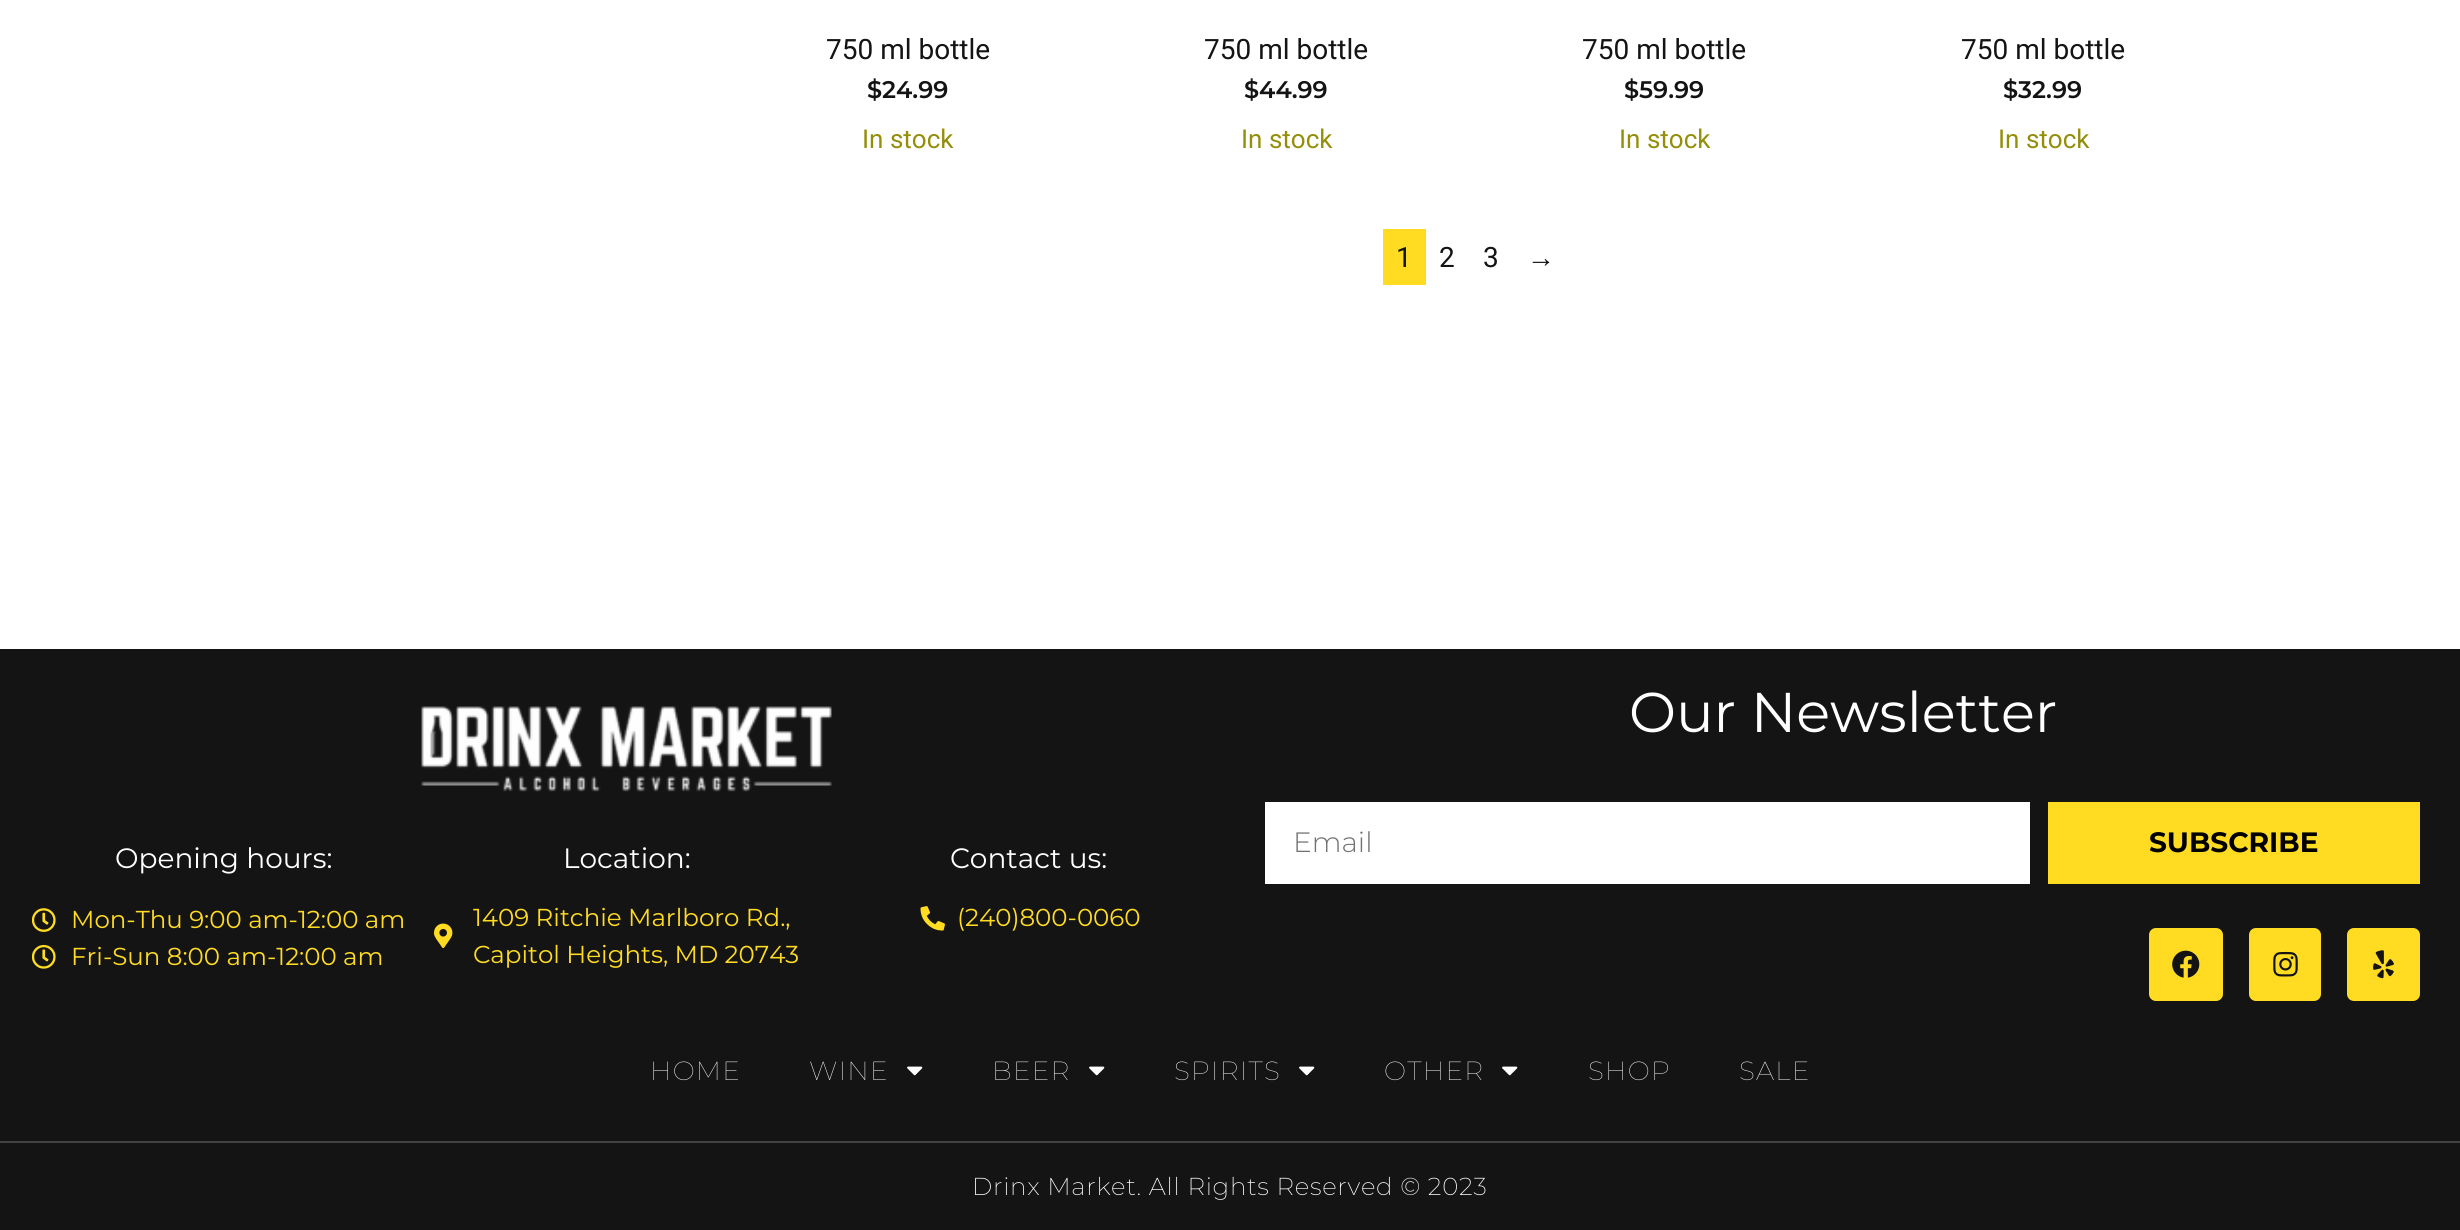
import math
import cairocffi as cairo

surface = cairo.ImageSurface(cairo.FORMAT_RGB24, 2460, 1230)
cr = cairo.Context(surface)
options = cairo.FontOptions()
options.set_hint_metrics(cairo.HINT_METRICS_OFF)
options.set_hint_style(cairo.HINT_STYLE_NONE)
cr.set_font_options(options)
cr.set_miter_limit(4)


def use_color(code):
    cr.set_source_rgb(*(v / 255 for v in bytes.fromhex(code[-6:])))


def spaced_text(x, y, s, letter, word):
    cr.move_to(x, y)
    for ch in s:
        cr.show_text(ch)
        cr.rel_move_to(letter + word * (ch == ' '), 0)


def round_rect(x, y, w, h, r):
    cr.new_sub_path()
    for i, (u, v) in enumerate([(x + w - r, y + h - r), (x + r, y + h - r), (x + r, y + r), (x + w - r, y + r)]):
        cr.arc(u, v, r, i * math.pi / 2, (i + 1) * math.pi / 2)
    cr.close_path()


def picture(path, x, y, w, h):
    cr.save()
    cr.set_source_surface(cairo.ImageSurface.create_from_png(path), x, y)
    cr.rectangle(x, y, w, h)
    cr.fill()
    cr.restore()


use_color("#ffffff")
cr.paint()
cr.select_font_face("Roboto")
cr.set_font_size(28)
use_color("#141414")
cr.move_to(826, 59)
cr.show_text("750 ml bottle")
cr.select_font_face("Montserrat SemiBold")
cr.set_font_size(24)
cr.move_to(867, 98)
cr.show_text("$24.99")
cr.select_font_face("Roboto")
cr.set_font_size(26)
use_color("#958e09")
cr.move_to(862, 148)
cr.show_text("In stock")
cr.set_font_size(28)
use_color("#141414")
cr.move_to(1204, 59)
cr.show_text("750 ml bottle")
cr.select_font_face("Montserrat SemiBold")
cr.set_font_size(24)
cr.move_to(1244, 98)
cr.show_text("$44.99")
cr.select_font_face("Roboto")
cr.set_font_size(26)
use_color("#958e09")
cr.move_to(1241, 148)
cr.show_text("In stock")
cr.set_font_size(28)
use_color("#141414")
cr.move_to(1582, 59)
cr.show_text("750 ml bottle")
cr.select_font_face("Montserrat SemiBold")
cr.set_font_size(24)
cr.move_to(1624, 98)
cr.show_text("$59.99")
cr.select_font_face("Roboto")
cr.set_font_size(26)
use_color("#958e09")
cr.move_to(1619, 148)
cr.show_text("In stock")
cr.set_font_size(28)
use_color("#141414")
cr.move_to(1961, 59)
cr.show_text("750 ml bottle")
cr.select_font_face("Montserrat SemiBold")
cr.set_font_size(24)
cr.move_to(2003, 98)
cr.show_text("$32.99")
cr.select_font_face("Roboto")
cr.set_font_size(26)
use_color("#958e09")
cr.move_to(1998, 148)
cr.show_text("In stock")
use_color("#ffdc22")
cr.rectangle(1383, 229, 43, 56)
cr.fill()
cr.set_font_size(28)
use_color("#141414")
cr.move_to(1396, 267)
cr.show_text("1")
cr.move_to(1439, 267)
cr.show_text("2")
cr.move_to(1483, 267)
cr.show_text("3")
cr.select_font_face("Liberation Sans")
cr.move_to(1527, 267)
cr.show_text("→")
cr.rectangle(0, 649, 2460, 492)
cr.fill()
cr.select_font_face("Montserrat Thin")
cr.set_font_size(56)
use_color("#ffffff")
cr.move_to(1629, 732)
cr.show_text("Our Newsletter")
cr.rectangle(1265, 802, 765, 82)
cr.fill()
cr.select_font_face("Montserrat Light")
cr.set_font_size(28)
use_color("#727272")
cr.move_to(1293, 852)
cr.show_text("Email")
use_color("#ffdc22")
cr.rectangle(2048, 802, 372, 82)
cr.fill()
cr.select_font_face("Montserrat", cairo.FONT_SLANT_NORMAL, cairo.FONT_WEIGHT_BOLD)
use_color("#000000")
cr.move_to(2149, 852)
cr.show_text("SUBSCRIBE")
use_color("#ffdc22")
round_rect(2149, 928, 74, 73, 7)
cr.fill()
picture("img1.png", 2172, 950, 28, 28)
round_rect(2249, 928, 72, 73, 7)
cr.fill()
picture("img2.png", 2273, 951, 25, 26)
round_rect(2347, 928, 73, 73, 7)
cr.fill()
picture("img3.png", 2373, 950, 21, 29)
picture("img4.png", 421, 706, 411, 86)
cr.select_font_face("Montserrat Thin")
use_color("#ffffff")
cr.move_to(115, 868)
cr.show_text("Opening hours:")
picture("img5.png", 32, 908, 24, 24)
cr.set_font_size(24.5)
use_color("#ffdc22")
cr.move_to(71, 928)
cr.show_text("Mon-Thu 9:00 am-12:00 am")
picture("img6.png", 32, 944, 24, 25)
cr.move_to(71, 965)
cr.show_text("Fri-Sun 8:00 am-12:00 am")
cr.set_font_size(28)
use_color("#ffffff")
cr.move_to(563, 868)
cr.show_text("Location:")
picture("img7.png", 434, 923, 19, 25)
cr.set_font_size(24.5)
use_color("#ffdc22")
cr.move_to(473, 926)
cr.show_text("1409 Ritchie Marlboro Rd.,")
cr.move_to(473, 963)
cr.show_text("Capitol Heights, MD 20743")
cr.set_font_size(28)
use_color("#ffffff")
cr.move_to(950, 868)
cr.show_text("Contact us:")
picture("img8.png", 920, 906, 25, 25)
cr.set_font_size(24.5)
use_color("#ffdc22")
cr.move_to(957, 926)
cr.show_text("(240)800-0060")
cr.select_font_face("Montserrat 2 Thin")
cr.set_font_size(26.25)
use_color("#ffffff")
spaced_text(650, 1080, "HOME", 1.25, 0)
spaced_text(809, 1080, "WINE", 1.25, 0)
picture("img9.png", 907, 1066, 16, 10)
spaced_text(992, 1080, "BEER", 1.25, 0)
picture("img9.png", 1089, 1066, 16, 10)
spaced_text(1174, 1080, "SPIRITS", 1.25, 0)
picture("img9.png", 1299, 1066, 16, 10)
spaced_text(1384, 1080, "OTHER", 1.25, 0)
picture("img9.png", 1502, 1066, 16, 10)
spaced_text(1588, 1080, "SHOP", 1.25, 0)
spaced_text(1739, 1080, "SALE", 1.25, 0)
use_color("#141414")
cr.rectangle(0, 1143, 2460, 87)
cr.fill()
use_color("#434343")
cr.rectangle(0, 1141, 2460, 2)
cr.fill()
cr.select_font_face("Montserrat ExtraLight")
cr.set_font_size(24.5)
use_color("#ffffff")
spaced_text(972, 1195, "Drinx Market. All Rights Reserved © 2023", 0.7, 0)
surface.write_to_png("result.png")
